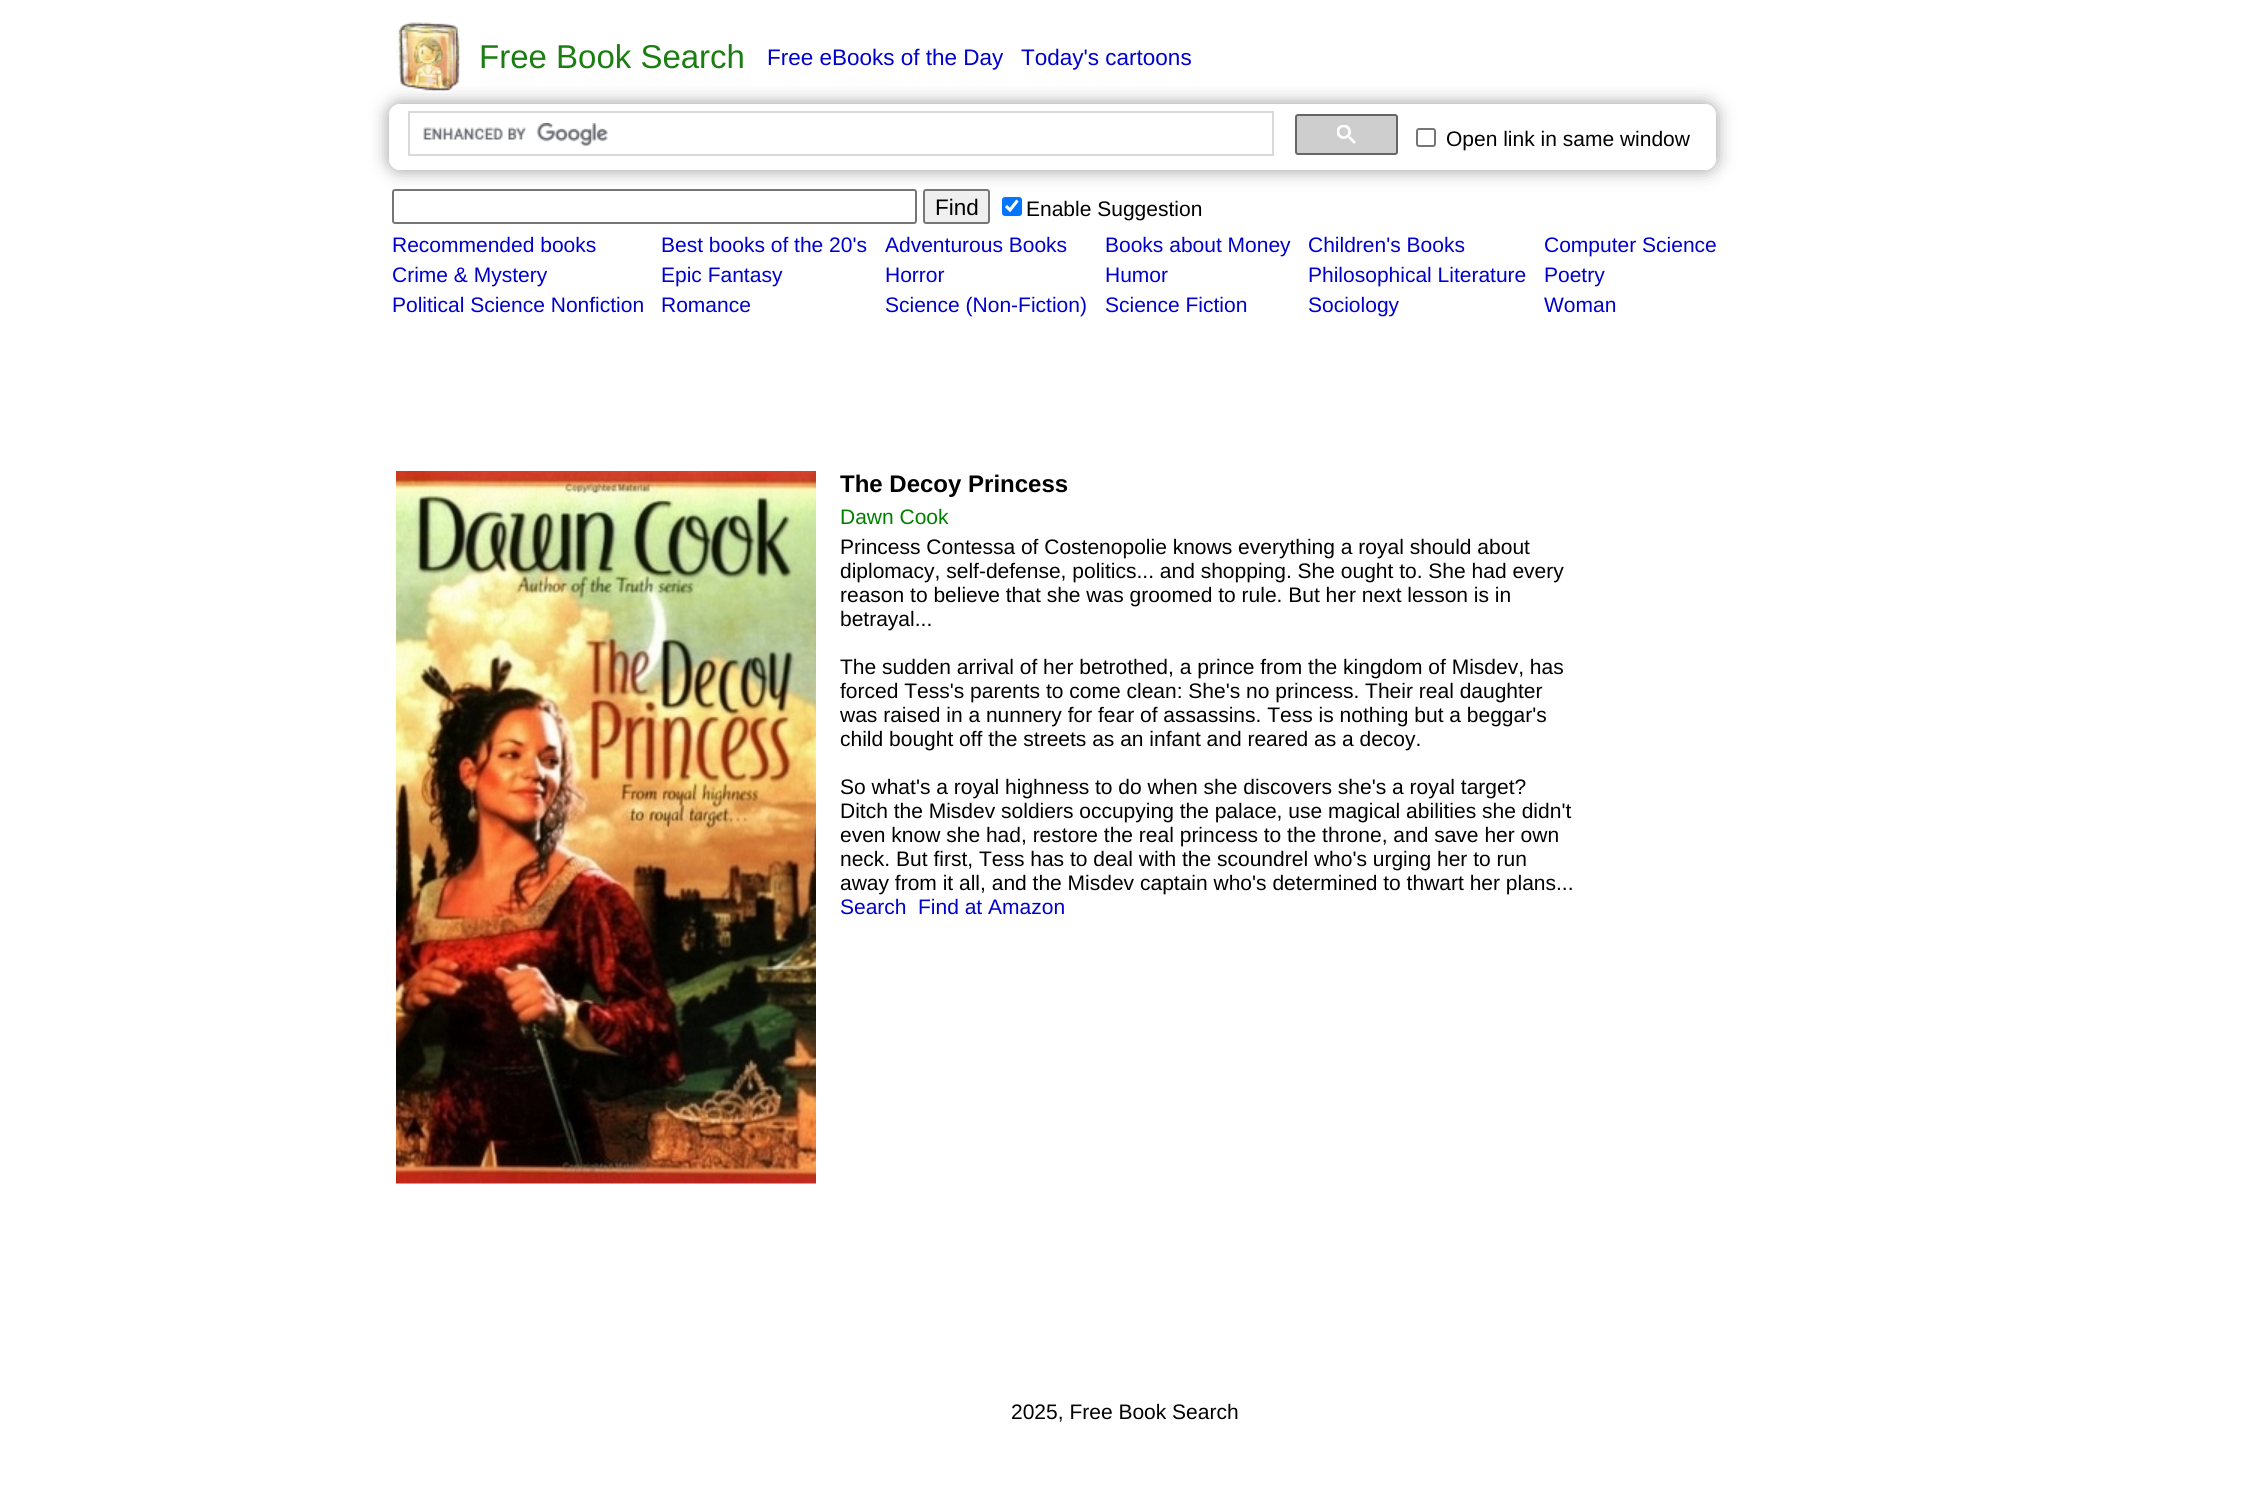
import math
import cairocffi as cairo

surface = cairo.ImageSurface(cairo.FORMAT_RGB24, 2250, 1487)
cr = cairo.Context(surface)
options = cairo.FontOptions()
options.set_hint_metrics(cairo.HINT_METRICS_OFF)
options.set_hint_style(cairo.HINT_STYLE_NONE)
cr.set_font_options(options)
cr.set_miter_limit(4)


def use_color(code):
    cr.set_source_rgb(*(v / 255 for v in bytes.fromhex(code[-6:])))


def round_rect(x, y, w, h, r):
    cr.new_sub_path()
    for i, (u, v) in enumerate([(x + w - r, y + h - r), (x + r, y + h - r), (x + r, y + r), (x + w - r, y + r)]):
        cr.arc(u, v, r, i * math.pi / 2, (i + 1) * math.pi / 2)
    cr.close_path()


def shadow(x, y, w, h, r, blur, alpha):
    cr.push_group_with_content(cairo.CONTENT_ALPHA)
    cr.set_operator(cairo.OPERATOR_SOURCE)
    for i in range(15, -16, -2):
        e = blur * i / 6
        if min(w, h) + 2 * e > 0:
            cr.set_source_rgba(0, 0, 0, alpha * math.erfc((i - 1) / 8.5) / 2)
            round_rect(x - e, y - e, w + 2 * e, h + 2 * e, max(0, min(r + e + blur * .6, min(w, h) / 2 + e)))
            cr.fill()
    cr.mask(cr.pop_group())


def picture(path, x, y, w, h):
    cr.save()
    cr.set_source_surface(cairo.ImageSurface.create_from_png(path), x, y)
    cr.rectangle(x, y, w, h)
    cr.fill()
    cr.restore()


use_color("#ffffff")
cr.paint()
cr.save()
cr.set_fill_rule(cairo.FILL_RULE_EVEN_ODD)
cr.new_path()
cr.move_to(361, 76)
cr.line_to(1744, 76)
cr.line_to(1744, 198)
cr.line_to(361, 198)
cr.close_path()
cr.move_to(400, 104)
cr.line_to(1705, 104)
cr.curve_to(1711, 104, 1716, 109, 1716, 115)
cr.line_to(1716, 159)
cr.curve_to(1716, 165, 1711, 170, 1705, 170)
cr.line_to(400, 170)
cr.curve_to(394, 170, 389, 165, 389, 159)
cr.line_to(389, 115)
cr.curve_to(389, 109, 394, 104, 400, 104)
cr.close_path()
cr.clip()
use_color("#999999")
shadow(389, 104, 1327, 66, 11, 9, 1)
cr.restore()
picture("img1.png", 396, 22, 64, 71)
cr.select_font_face("Liberation Sans")
cr.set_font_size(33)
use_color("#1c7e12")
cr.move_to(479, 68)
cr.show_text("Free Book Search")
cr.set_font_size(22.5)
use_color("#0000cc")
cr.move_to(767, 65)
cr.show_text("Free eBooks of the Day")
cr.move_to(1021, 65)
cr.show_text("Today's cartoons")
cr.rectangle(409, 112, 864, 43)
use_color("#d9d9d9")
cr.stroke()
picture("img2.png", 423, 123, 185, 23)
use_color("#cecece")
round_rect(1296, 115, 101, 39, 2)
cr.fill_preserve()
use_color("#666666")
cr.stroke()
picture("img3.png", 1337, 125, 19, 19)
round_rect(1417, 129, 18, 17, 2)
use_color("#767676")
cr.stroke()
cr.set_font_size(21)
use_color("#000000")
cr.move_to(1446, 146)
cr.show_text("Open link in same window")
round_rect(393, 190, 523, 33, 2)
use_color("#767676")
cr.stroke()
use_color("#efefef")
round_rect(924, 190, 65, 33, 2)
cr.fill_preserve()
use_color("#767676")
cr.stroke()
cr.set_font_size(22.5)
use_color("#000000")
cr.move_to(935, 215)
cr.show_text("Find")
use_color("#0075ff")
round_rect(1002, 197, 20, 19, 3)
cr.fill()
cr.new_path()
cr.move_to(1006, 206)
cr.line_to(1010, 210)
cr.line_to(1017.5, 200.5)
use_color("#ffffff")
cr.set_line_width(3.1)
cr.stroke()
cr.set_font_size(21)
use_color("#000000")
cr.move_to(1026, 216)
cr.show_text("Enable Suggestion")
use_color("#0000cc")
cr.move_to(392, 252)
cr.show_text("Recommended books")
cr.move_to(661, 252)
cr.show_text("Best books of the 20's")
cr.move_to(885, 252)
cr.show_text("Adventurous Books")
cr.move_to(1105, 252)
cr.show_text("Books about Money")
cr.move_to(1308, 252)
cr.show_text("Children's Books")
cr.move_to(1544, 252)
cr.show_text("Computer Science")
cr.move_to(392, 282)
cr.show_text("Crime & Mystery")
cr.move_to(661, 282)
cr.show_text("Epic Fantasy")
cr.move_to(885, 282)
cr.show_text("Horror")
cr.move_to(1105, 282)
cr.show_text("Humor")
cr.move_to(1308, 282)
cr.show_text("Philosophical Literature")
cr.move_to(1544, 282)
cr.show_text("Poetry")
cr.move_to(392, 312)
cr.show_text("Political Science Nonfiction")
cr.move_to(661, 312)
cr.show_text("Romance")
cr.move_to(885, 312)
cr.show_text("Science (Non-Fiction)")
cr.move_to(1105, 312)
cr.show_text("Science Fiction")
cr.move_to(1308, 312)
cr.show_text("Sociology")
cr.move_to(1544, 312)
cr.show_text("Woman")
picture("img4.png", 396, 471, 420, 713)
cr.select_font_face("Liberation Sans", cairo.FONT_SLANT_NORMAL, cairo.FONT_WEIGHT_BOLD)
cr.set_font_size(24)
use_color("#000000")
cr.move_to(840, 492)
cr.show_text("The Decoy Princess")
cr.select_font_face("Liberation Sans")
cr.set_font_size(21)
use_color("#008000")
cr.move_to(840, 524)
cr.show_text("Dawn Cook")
use_color("#000000")
cr.move_to(840, 554)
cr.show_text("Princess Contessa of Costenopolie knows everything a royal should about")
cr.move_to(840, 578)
cr.show_text("diplomacy, self-defense, politics... and shopping. She ought to. She had every")
cr.move_to(840, 602)
cr.show_text("reason to believe that she was groomed to rule. But her next lesson is in")
cr.move_to(840, 626)
cr.show_text("betrayal...")
cr.move_to(840, 674)
cr.show_text("The sudden arrival of her betrothed, a prince from the kingdom of Misdev, has")
cr.move_to(840, 698)
cr.show_text("forced Tess's parents to come clean: She's no princess. Their real daughter")
cr.move_to(840, 722)
cr.show_text("was raised in a nunnery for fear of assassins. Tess is nothing but a beggar's")
cr.move_to(840, 746)
cr.show_text("child bought off the streets as an infant and reared as a decoy.")
cr.move_to(840, 794)
cr.show_text("So what's a royal highness to do when she discovers she's a royal target?")
cr.move_to(840, 818)
cr.show_text("Ditch the Misdev soldiers occupying the palace, use magical abilities she didn't")
cr.move_to(840, 842)
cr.show_text("even know she had, restore the real princess to the throne, and save her own")
cr.move_to(840, 866)
cr.show_text("neck. But first, Tess has to deal with the scoundrel who's urging her to run")
cr.move_to(840, 890)
cr.show_text("away from it all, and the Misdev captain who's determined to thwart her plans...")
use_color("#0000cc")
cr.move_to(840, 914)
cr.show_text("Search")
cr.move_to(918, 914)
cr.show_text("Find at Amazon")
use_color("#000000")
cr.move_to(1011, 1419)
cr.show_text("2025, Free Book Search")
surface.write_to_png("result.png")
